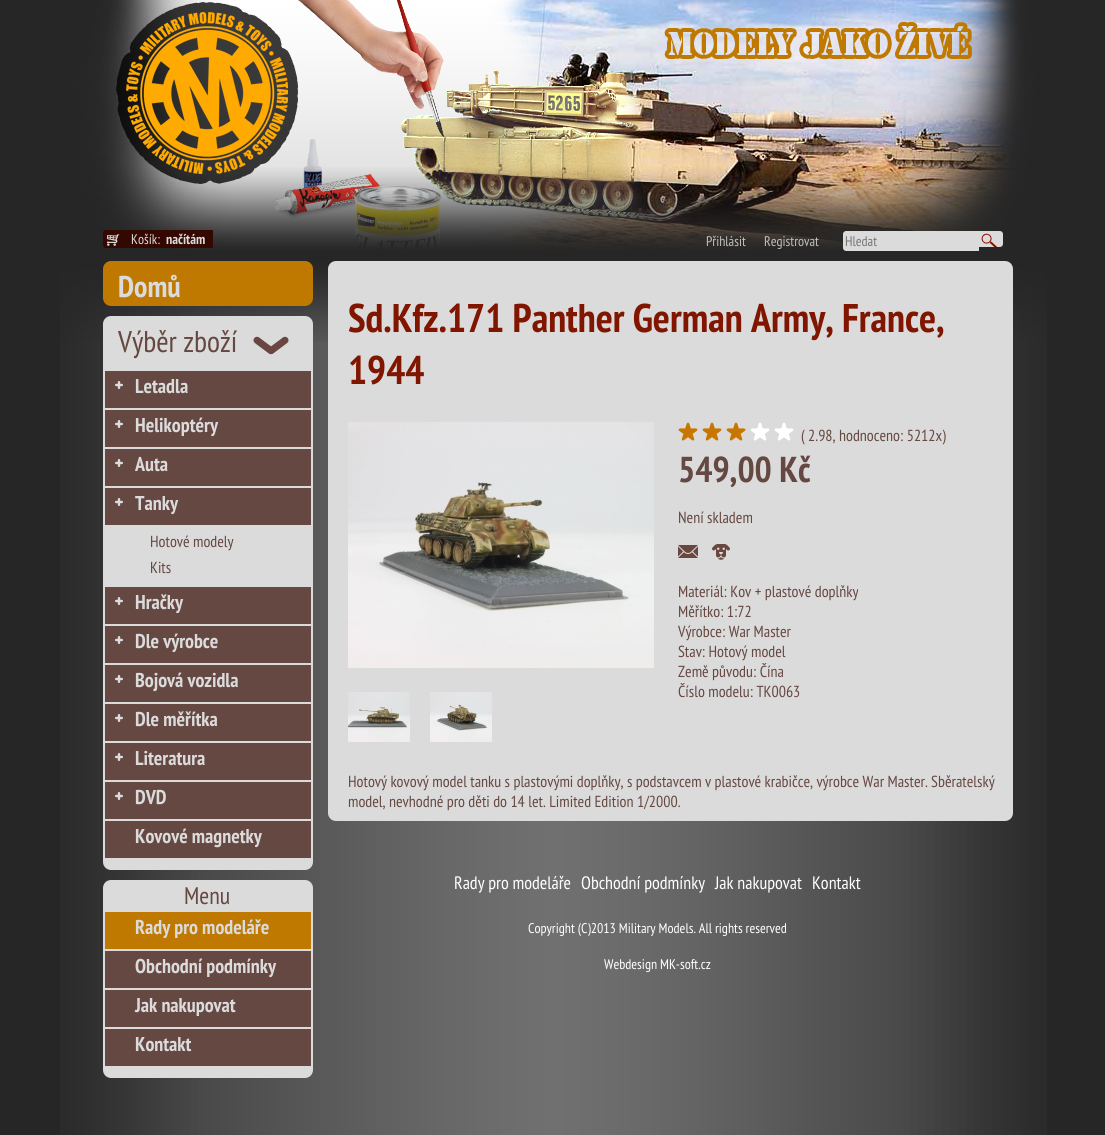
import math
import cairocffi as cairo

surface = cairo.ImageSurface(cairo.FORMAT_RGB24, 1105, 1135)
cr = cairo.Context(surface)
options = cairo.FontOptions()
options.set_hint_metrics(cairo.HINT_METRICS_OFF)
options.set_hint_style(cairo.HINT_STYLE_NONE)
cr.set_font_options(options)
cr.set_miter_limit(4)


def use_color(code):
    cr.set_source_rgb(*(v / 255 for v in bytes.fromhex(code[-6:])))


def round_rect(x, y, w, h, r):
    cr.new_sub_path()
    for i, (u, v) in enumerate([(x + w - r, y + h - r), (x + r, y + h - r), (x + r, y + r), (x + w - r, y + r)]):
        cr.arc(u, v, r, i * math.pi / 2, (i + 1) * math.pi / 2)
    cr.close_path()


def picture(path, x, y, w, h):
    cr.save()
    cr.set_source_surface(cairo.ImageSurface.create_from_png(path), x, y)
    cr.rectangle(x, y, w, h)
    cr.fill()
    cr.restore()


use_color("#262626")
cr.paint()
picture("img1.png", 60, 342, 987, 793)
picture("img2.png", 60, 0, 987, 342)
use_color("#330800")
round_rect(103, 230, 110, 18, 3)
cr.fill()
cr.rectangle(105, 230, 108, 18)
cr.fill()
picture("img3.png", 107, 234, 13, 12)
cr.select_font_face("PT Sans Narrow")
cr.set_font_size(14)
use_color("#dbdbdb")
cr.move_to(131, 244)
cr.show_text("Košík:")
cr.select_font_face("PT Sans Narrow", cairo.FONT_SLANT_NORMAL, cairo.FONT_WEIGHT_BOLD)
cr.move_to(166, 244)
cr.show_text("načítám")
cr.select_font_face("PT Sans Narrow")
use_color("#bfbfbf")
cr.move_to(706, 246)
cr.show_text("Přihlásit")
cr.move_to(764, 246)
cr.show_text("Registrovat")
use_color("#dbdbdb")
cr.new_path()
cr.move_to(846, 231)
cr.line_to(979, 231)
cr.line_to(979, 251)
cr.line_to(846, 251)
cr.curve_to(844.5, 251, 843, 249.5, 843, 248)
cr.line_to(843, 234)
cr.curve_to(843, 232.5, 844.5, 231, 846, 231)
cr.close_path()
cr.fill()
cr.new_path()
cr.move_to(979, 231)
cr.line_to(1000, 231)
cr.curve_to(1001.5, 231, 1003, 232.5, 1003, 234)
cr.line_to(1003, 244)
cr.curve_to(1003, 245.5, 1001.5, 247, 1000, 247)
cr.line_to(979, 247)
cr.close_path()
cr.fill()
use_color("#757575")
cr.move_to(845, 246)
cr.show_text("Hledat")
picture("img4.png", 981, 233, 17, 14)
use_color("#bf7900")
round_rect(103, 261, 210, 45, 8)
cr.fill()
cr.select_font_face("PT Sans Narrow", cairo.FONT_SLANT_NORMAL, cairo.FONT_WEIGHT_BOLD)
cr.set_font_size(30)
use_color("#dbdbdb")
cr.move_to(118, 297)
cr.show_text("Domů")
round_rect(103, 316, 210, 554, 8)
cr.fill()
picture("img5.png", 253, 336, 36, 19)
cr.select_font_face("PT Sans Narrow")
use_color("#664842")
cr.move_to(118, 352)
cr.show_text("Výběr zboží")
cr.rectangle(105, 371, 206, 37)
cr.fill()
picture("img6.png", 115, 381, 8, 8)
cr.select_font_face("PT Sans Narrow", cairo.FONT_SLANT_NORMAL, cairo.FONT_WEIGHT_BOLD)
cr.set_font_size(20)
use_color("#dbdbdb")
cr.move_to(135, 393)
cr.show_text("Letadla")
use_color("#664842")
cr.rectangle(105, 410, 206, 37)
cr.fill()
picture("img6.png", 115, 420, 8, 8)
use_color("#dbdbdb")
cr.move_to(135, 432)
cr.show_text("Helikoptéry")
use_color("#664842")
cr.rectangle(105, 449, 206, 37)
cr.fill()
picture("img6.png", 115, 459, 8, 8)
use_color("#dbdbdb")
cr.move_to(135, 471)
cr.show_text("Auta")
use_color("#664842")
cr.rectangle(105, 488, 206, 37)
cr.fill()
picture("img6.png", 115, 498, 8, 8)
use_color("#dbdbdb")
cr.move_to(135, 510)
cr.show_text("Tanky")
cr.select_font_face("PT Sans Narrow")
cr.set_font_size(16)
use_color("#664842")
cr.move_to(150, 547)
cr.show_text("Hotové modely")
cr.move_to(150, 573)
cr.show_text("Kits")
cr.rectangle(105, 587, 206, 37)
cr.fill()
picture("img6.png", 115, 597, 8, 8)
cr.select_font_face("PT Sans Narrow", cairo.FONT_SLANT_NORMAL, cairo.FONT_WEIGHT_BOLD)
cr.set_font_size(20)
use_color("#dbdbdb")
cr.move_to(135, 609)
cr.show_text("Hračky")
use_color("#664842")
cr.rectangle(105, 626, 206, 37)
cr.fill()
picture("img6.png", 115, 636, 8, 8)
use_color("#dbdbdb")
cr.move_to(135, 648)
cr.show_text("Dle výrobce")
use_color("#664842")
cr.rectangle(105, 665, 206, 37)
cr.fill()
picture("img6.png", 115, 675, 8, 8)
use_color("#dbdbdb")
cr.move_to(135, 687)
cr.show_text("Bojová vozidla")
use_color("#664842")
cr.rectangle(105, 704, 206, 37)
cr.fill()
picture("img6.png", 115, 714, 8, 8)
use_color("#dbdbdb")
cr.move_to(135, 726)
cr.show_text("Dle měřítka")
use_color("#664842")
cr.rectangle(105, 743, 206, 37)
cr.fill()
picture("img6.png", 115, 753, 8, 8)
use_color("#dbdbdb")
cr.move_to(135, 765)
cr.show_text("Literatura")
use_color("#664842")
cr.rectangle(105, 782, 206, 37)
cr.fill()
picture("img6.png", 115, 792, 8, 8)
use_color("#dbdbdb")
cr.move_to(135, 804)
cr.show_text("DVD")
use_color("#664842")
cr.rectangle(105, 821, 206, 37)
cr.fill()
use_color("#dbdbdb")
cr.move_to(135, 843)
cr.show_text("Kovové magnetky")
round_rect(103, 880, 210, 198, 8)
cr.fill()
cr.select_font_face("PT Sans Narrow")
cr.set_font_size(24)
use_color("#664842")
cr.move_to(184, 904)
cr.show_text("Menu")
use_color("#bf7900")
cr.rectangle(105, 912, 206, 37)
cr.fill()
cr.select_font_face("PT Sans Narrow", cairo.FONT_SLANT_NORMAL, cairo.FONT_WEIGHT_BOLD)
cr.set_font_size(20)
use_color("#dbdbdb")
cr.move_to(135, 934)
cr.show_text("Rady pro modeláře")
use_color("#664842")
cr.rectangle(105, 951, 206, 37)
cr.fill()
use_color("#dbdbdb")
cr.move_to(135, 973)
cr.show_text("Obchodní podmínky")
use_color("#664842")
cr.rectangle(105, 990, 206, 37)
cr.fill()
use_color("#dbdbdb")
cr.move_to(135, 1012)
cr.show_text("Jak nakupovat")
use_color("#664842")
cr.rectangle(105, 1029, 206, 37)
cr.fill()
use_color("#dbdbdb")
cr.move_to(135, 1051)
cr.show_text("Kontakt")
round_rect(328, 261, 685, 560, 8)
cr.fill()
cr.set_font_size(40)
use_color("#801500")
cr.move_to(348, 332)
cr.show_text("Sd.Kfz.171 Panther German Army, France,")
cr.move_to(348, 384)
cr.show_text("1944")
picture("img7.png", 348, 422, 306, 246)
picture("img8.png", 348, 692, 62, 50)
picture("img9.png", 430, 692, 62, 50)
picture("img10.png", 678, 422, 20, 19)
picture("img10.png", 702, 422, 20, 19)
picture("img10.png", 726, 422, 20, 19)
picture("img11.png", 750, 422, 20, 19)
picture("img11.png", 774, 422, 20, 19)
cr.select_font_face("PT Sans Narrow")
cr.set_font_size(16)
use_color("#664842")
cr.move_to(801, 441)
cr.show_text("( 2.98, hodnoceno: 5212x)")
cr.select_font_face("PT Sans Narrow", cairo.FONT_SLANT_NORMAL, cairo.FONT_WEIGHT_BOLD)
cr.set_font_size(36)
cr.move_to(678, 482)
cr.show_text("549,00 Kč")
cr.select_font_face("PT Sans Narrow")
cr.set_font_size(16)
cr.move_to(678, 523)
cr.show_text("Není skladem")
picture("img12.png", 678, 545, 20, 13)
picture("img13.png", 712, 544, 18, 16)
cr.move_to(678, 597)
cr.show_text("Materiál: Kov + plastové doplňky")
cr.move_to(678, 617)
cr.show_text("Měřítko: 1:72")
cr.move_to(678, 637)
cr.show_text("Výrobce: War Master")
cr.move_to(678, 657)
cr.show_text("Stav: Hotový model")
cr.move_to(678, 677)
cr.show_text("Země původu: Čína")
cr.move_to(678, 697)
cr.show_text("Číslo modelu: TK0063")
cr.move_to(348, 787)
cr.show_text("Hotový kovový model tanku s plastovými doplňky, s podstavcem v plastové krabičce, výrobce War Master. Sběratelský")
cr.move_to(348, 807)
cr.show_text("model, nevhodné pro děti do 14 let. Limited Edition 1/2000.")
cr.set_font_size(18)
use_color("#ffffff")
cr.move_to(454, 889)
cr.show_text("Rady pro modeláře")
cr.move_to(581, 889)
cr.show_text("Obchodní podmínky")
cr.move_to(715, 889)
cr.show_text("Jak nakupovat")
cr.move_to(812, 889)
cr.show_text("Kontakt")
cr.set_font_size(14)
cr.move_to(528, 933)
cr.show_text("Copyright (C)2013 Military Models. All rights reserved")
cr.move_to(604, 969)
cr.show_text("Webdesign MK-soft.cz")
surface.write_to_png("result.png")
